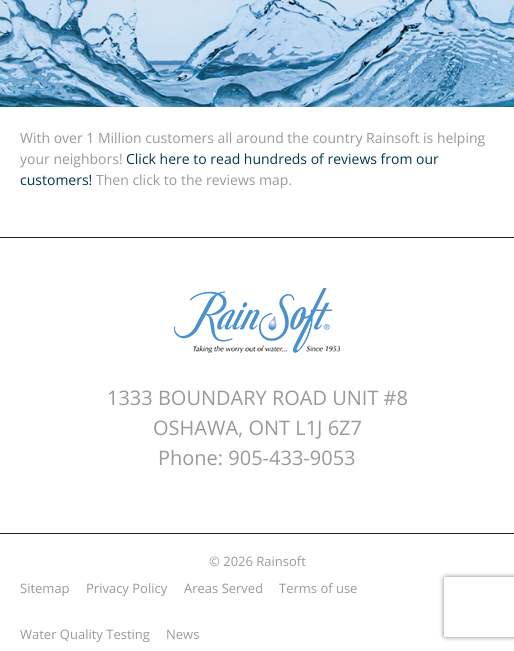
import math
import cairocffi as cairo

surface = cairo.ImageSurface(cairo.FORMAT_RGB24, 514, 651)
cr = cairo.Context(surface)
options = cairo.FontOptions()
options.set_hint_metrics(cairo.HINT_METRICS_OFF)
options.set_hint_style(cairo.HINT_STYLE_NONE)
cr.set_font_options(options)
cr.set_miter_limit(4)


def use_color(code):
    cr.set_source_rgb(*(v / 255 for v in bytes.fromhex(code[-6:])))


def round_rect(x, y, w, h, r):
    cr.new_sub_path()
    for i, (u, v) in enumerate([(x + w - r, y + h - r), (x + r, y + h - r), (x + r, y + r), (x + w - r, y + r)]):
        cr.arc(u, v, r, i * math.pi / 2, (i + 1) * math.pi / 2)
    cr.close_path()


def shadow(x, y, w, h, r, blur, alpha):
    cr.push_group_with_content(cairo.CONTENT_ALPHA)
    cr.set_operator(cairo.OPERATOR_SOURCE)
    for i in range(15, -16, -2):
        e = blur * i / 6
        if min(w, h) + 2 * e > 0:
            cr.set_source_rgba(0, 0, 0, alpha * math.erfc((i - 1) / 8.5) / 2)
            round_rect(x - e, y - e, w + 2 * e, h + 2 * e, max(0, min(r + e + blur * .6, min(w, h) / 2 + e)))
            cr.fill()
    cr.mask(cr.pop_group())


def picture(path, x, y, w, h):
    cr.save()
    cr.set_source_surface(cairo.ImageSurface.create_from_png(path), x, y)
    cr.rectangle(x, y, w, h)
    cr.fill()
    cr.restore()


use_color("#ffffff")
cr.paint()
picture("img1.png", 0, 0, 514, 107)
cr.select_font_face("Open Sans")
cr.set_font_size(14)
use_color("#999999")
cr.move_to(20, 143)
cr.show_text("With over 1 Million customers all around the country Rainsoft is helping")
cr.move_to(20, 164)
cr.show_text("your neighbors!")
use_color("#00364e")
cr.move_to(126, 164)
cr.show_text("Click here to read hundreds of reviews from our")
cr.move_to(20, 185)
cr.show_text("customers!")
use_color("#999999")
cr.move_to(96, 185)
cr.show_text("Then click to the reviews map.")
use_color("#222222")
cr.rectangle(0, 237, 514, 1)
cr.fill()
cr.rectangle(0, 533, 514, 1)
cr.fill()
picture("img2.png", 174, 288, 166, 65)
cr.set_font_size(20)
use_color("#999999")
cr.move_to(107, 405)
cr.show_text("1333 BOUNDARY ROAD UNIT #8")
cr.move_to(153, 435)
cr.show_text("OSHAWA, ONT L1J 6Z7")
cr.move_to(158, 465)
cr.show_text("Phone: 905-433-9053")
cr.set_font_size(13)
cr.move_to(209, 566)
cr.show_text("© 2026 Rainsoft")
cr.move_to(20, 593)
cr.show_text("Sitemap")
cr.move_to(86, 593)
cr.show_text("Privacy Policy")
cr.move_to(184, 593)
cr.show_text("Areas Served")
cr.move_to(279, 593)
cr.show_text("Terms of use")
cr.move_to(20, 639)
cr.show_text("Water Quality Testing")
cr.move_to(166, 639)
cr.show_text("News")
cr.save()
cr.set_fill_rule(cairo.FILL_RULE_EVEN_ODD)
cr.new_path()
cr.move_to(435, 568)
cr.line_to(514, 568)
cr.line_to(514, 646)
cr.line_to(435, 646)
cr.close_path()
cr.move_to(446, 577)
cr.line_to(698, 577)
cr.curve_to(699, 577, 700, 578, 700, 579)
cr.line_to(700, 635)
cr.curve_to(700, 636, 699, 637, 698, 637)
cr.line_to(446, 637)
cr.curve_to(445, 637, 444, 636, 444, 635)
cr.line_to(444, 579)
cr.curve_to(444, 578, 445, 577, 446, 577)
cr.close_path()
cr.clip()
use_color("#808080")
shadow(444, 577, 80, 60, 2, 2.5, 1)
cr.restore()
surface.write_to_png("result.png")
